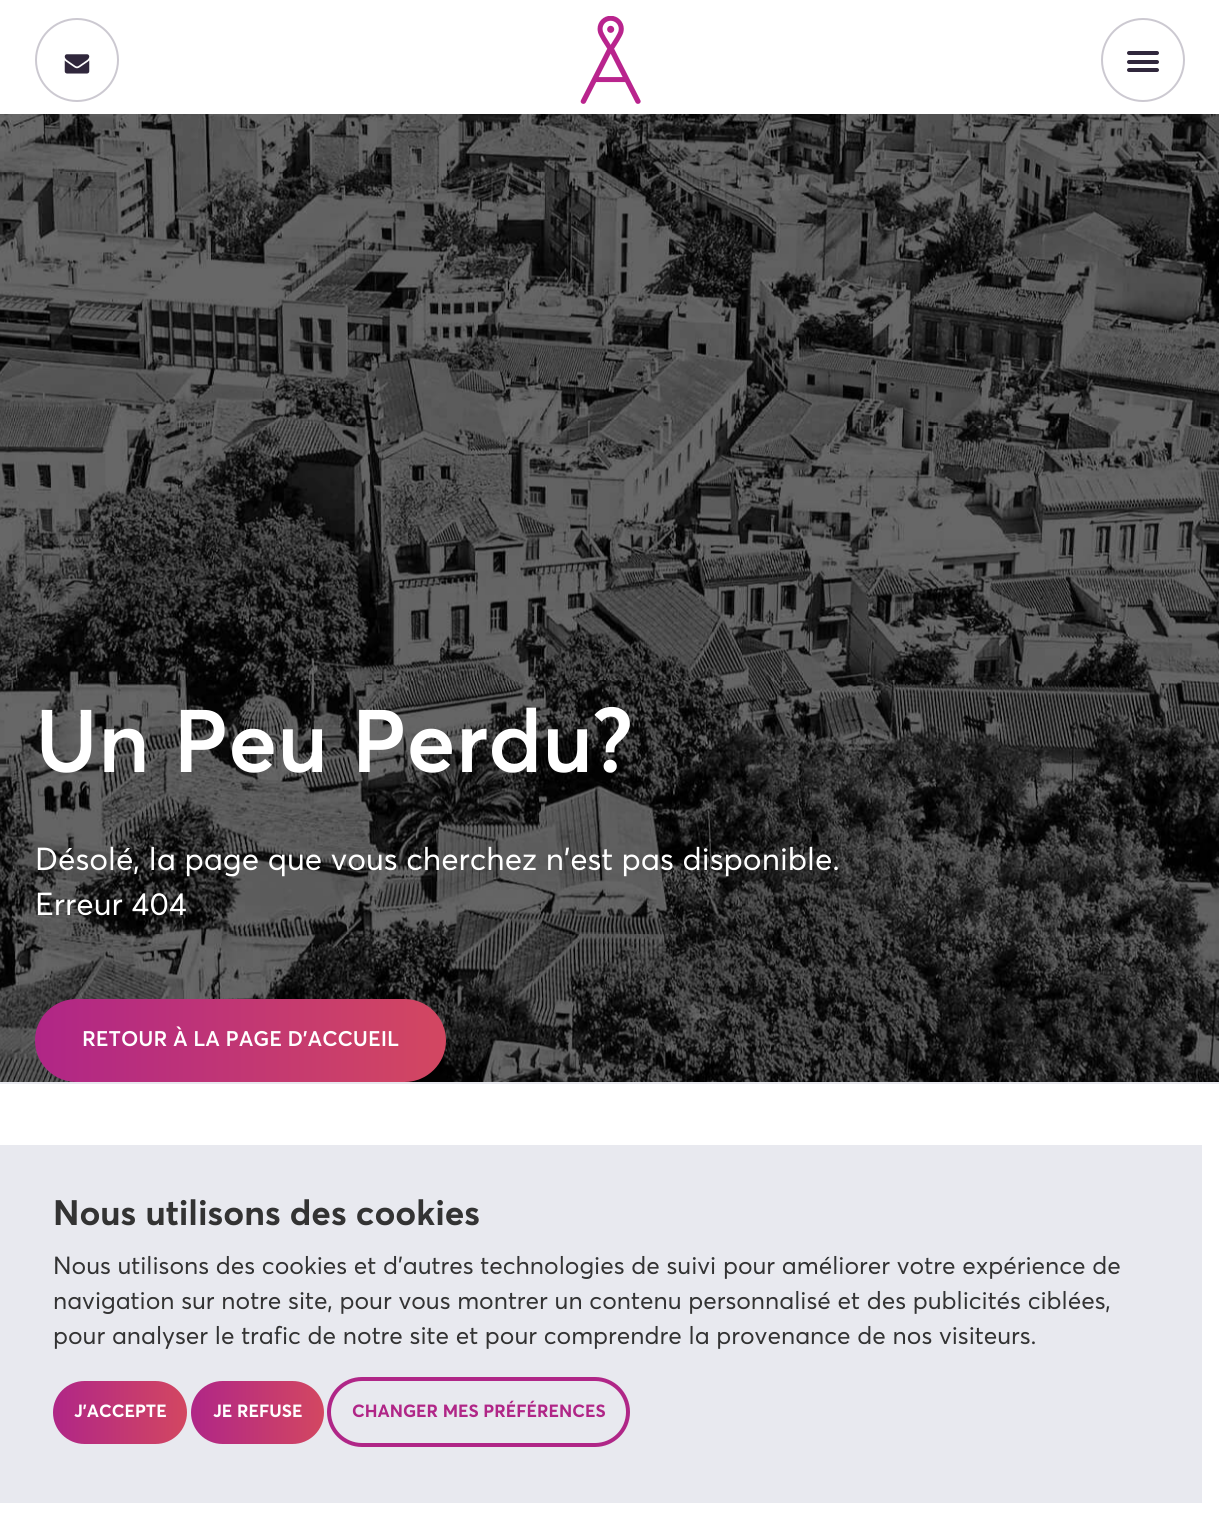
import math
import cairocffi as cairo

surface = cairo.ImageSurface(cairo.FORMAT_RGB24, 1219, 1520)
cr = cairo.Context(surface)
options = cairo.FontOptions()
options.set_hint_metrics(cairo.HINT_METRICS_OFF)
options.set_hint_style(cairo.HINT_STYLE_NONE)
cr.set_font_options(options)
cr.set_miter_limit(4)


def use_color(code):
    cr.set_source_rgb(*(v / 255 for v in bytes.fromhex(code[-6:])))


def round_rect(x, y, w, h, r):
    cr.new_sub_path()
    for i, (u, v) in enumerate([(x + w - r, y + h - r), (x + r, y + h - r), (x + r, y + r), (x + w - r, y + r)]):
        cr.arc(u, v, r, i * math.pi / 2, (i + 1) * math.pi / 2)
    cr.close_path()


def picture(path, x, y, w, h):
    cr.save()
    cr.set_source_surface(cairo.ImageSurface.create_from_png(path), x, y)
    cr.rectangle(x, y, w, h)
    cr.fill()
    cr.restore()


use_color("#ffffff")
cr.paint()
cr.arc(77, 60, 41, 0, 2 * math.pi)
use_color("#ccc9d1")
cr.stroke()
picture("img1.png", 64, 54, 26, 20)
picture("img2.png", 580, 16, 61, 88)
cr.arc(1143, 60, 41, 0, 2 * math.pi)
cr.stroke()
use_color("#30273c")
round_rect(1127, 51, 32, 4, 2)
cr.fill()
round_rect(1127, 60, 32, 4, 2)
cr.fill()
round_rect(1127, 68, 32, 4, 2)
cr.fill()
picture("img3.png", 0, 114, 1219, 968)
cr.select_font_face("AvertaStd")
cr.set_font_size(87.5)
use_color("#ffffff")
cr.move_to(35, 772)
cr.show_text("Un Peu Perdu?")
cr.select_font_face("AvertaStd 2")
cr.set_font_size(31.5)
cr.move_to(35, 870)
cr.show_text("Désolé, la page que vous cherchez n’est pas disponible.")
cr.move_to(35, 915)
cr.show_text("Erreur 404")
gradient = cairo.LinearGradient(35, 1040, 446, 1040)
gradient.add_color_stop_rgba(0, 0.69, 0.149, 0.529, 1)
gradient.add_color_stop_rgba(1, 0.827, 0.278, 0.38, 1)
cr.set_source(gradient)
round_rect(35, 999, 411, 83, 41.5)
cr.fill()
cr.select_font_face("AvertaStd")
cr.set_font_size(21)
use_color("#ffffff")
cr.move_to(82, 1046)
cr.show_text("RETOUR À LA PAGE D’ACCUEIL")
use_color("#e8e9ef")
cr.rectangle(0, 1082, 1219, 2)
cr.fill()
cr.rectangle(0, 1145, 1202, 358)
cr.fill()
cr.select_font_face("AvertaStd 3")
cr.set_font_size(35)
use_color("#333333")
cr.move_to(53, 1225)
cr.show_text("Nous utilisons des cookies")
cr.select_font_face("AvertaStd 2")
cr.set_font_size(24.5)
cr.move_to(53, 1274)
cr.show_text("Nous utilisons des cookies et d'autres technologies de suivi pour améliorer votre expérience de")
cr.move_to(53, 1309)
cr.show_text("navigation sur notre site, pour vous montrer un contenu personnalisé et des publicités ciblées,")
cr.move_to(53, 1344)
cr.show_text("pour analyser le trafic de notre site et pour comprendre la provenance de nos visiteurs.")
gradient = cairo.LinearGradient(53, 1412, 187, 1412)
gradient.add_color_stop_rgba(0, 0.69, 0.149, 0.529, 1)
gradient.add_color_stop_rgba(1, 0.827, 0.278, 0.38, 1)
cr.set_source(gradient)
round_rect(53, 1381, 134, 63, 31.5)
cr.fill()
cr.select_font_face("AvertaStd 3")
cr.set_font_size(17.5)
use_color("#ffffff")
cr.move_to(74, 1417)
cr.show_text("J'ACCEPTE")
gradient = cairo.LinearGradient(191, 1412, 324, 1412)
gradient.add_color_stop_rgba(0, 0.69, 0.149, 0.529, 1)
gradient.add_color_stop_rgba(1, 0.827, 0.278, 0.38, 1)
cr.set_source(gradient)
round_rect(191, 1381, 133, 63, 31.5)
cr.fill()
use_color("#ffffff")
cr.move_to(213, 1417)
cr.show_text("JE REFUSE")
round_rect(329, 1379, 299, 66, 33)
use_color("#b02687")
cr.set_line_width(4)
cr.stroke()
cr.move_to(352, 1417)
cr.show_text("CHANGER MES PRÉFÉRENCES")
surface.write_to_png("result.png")
